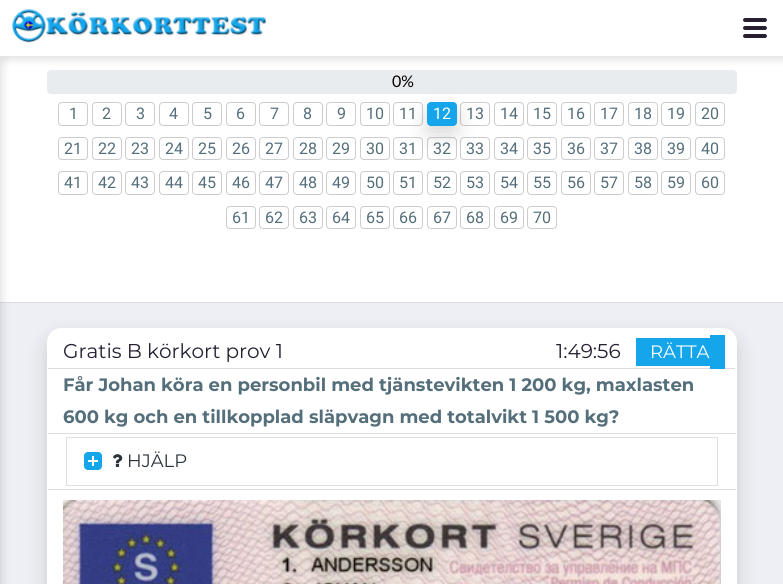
import math
import cairocffi as cairo

surface = cairo.ImageSurface(cairo.FORMAT_RGB24, 783, 584)
cr = cairo.Context(surface)
options = cairo.FontOptions()
options.set_hint_metrics(cairo.HINT_METRICS_OFF)
options.set_hint_style(cairo.HINT_STYLE_NONE)
cr.set_font_options(options)
cr.set_miter_limit(4)


def use_color(code):
    cr.set_source_rgb(*(v / 255 for v in bytes.fromhex(code[-6:])))


def round_rect(x, y, w, h, r):
    cr.new_sub_path()
    for i, (u, v) in enumerate([(x + w - r, y + h - r), (x + r, y + h - r), (x + r, y + r), (x + w - r, y + r)]):
        cr.arc(u, v, r, i * math.pi / 2, (i + 1) * math.pi / 2)
    cr.close_path()


def shadow(x, y, w, h, r, blur, alpha):
    cr.push_group_with_content(cairo.CONTENT_ALPHA)
    cr.set_operator(cairo.OPERATOR_SOURCE)
    for i in range(15, -16, -2):
        e = blur * i / 6
        if min(w, h) + 2 * e > 0:
            cr.set_source_rgba(0, 0, 0, alpha * math.erfc((i - 1) / 8.5) / 2)
            round_rect(x - e, y - e, w + 2 * e, h + 2 * e, max(0, min(r + e + blur * .6, min(w, h) / 2 + e)))
            cr.fill()
    cr.mask(cr.pop_group())


def picture(path, x, y, w, h):
    cr.save()
    cr.set_source_surface(cairo.ImageSurface.create_from_png(path), x, y)
    cr.rectangle(x, y, w, h)
    cr.fill()
    cr.restore()


use_color("#ffffff")
cr.paint()
use_color("#dadce0")
cr.rectangle(0, 302, 783, 1)
cr.fill()
use_color("#edeff4")
cr.rectangle(0, 303, 783, 281)
cr.fill()
use_color("#000000")
shadow(-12, 4, 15, 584, 0, 4, 0.11)
use_color("#e9ecef")
round_rect(47, 70, 690, 24, 4)
cr.fill()
use_color("#000000")
shadow(3, 4, 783, 56, 0, 4, 0.11)
use_color("#ffffff")
cr.rectangle(0, 0, 783, 56)
cr.fill()
picture("img1.png", 11, 8, 255, 35)
use_color("#262032")
cr.new_path()
cr.move_to(765, 30)
cr.line_to(745, 30)
cr.curve_to(744, 30, 743, 29, 743, 28)
cr.curve_to(743, 27, 744, 26, 745, 26)
cr.line_to(765, 26)
cr.curve_to(766, 26, 767, 27, 767, 28)
cr.curve_to(767, 29, 766, 30, 765, 30)
cr.close_path()
cr.move_to(765, 38)
cr.line_to(745, 38)
cr.curve_to(744, 38, 743, 37, 743, 36)
cr.curve_to(743, 35, 744, 34, 745, 34)
cr.line_to(765, 34)
cr.curve_to(766, 34, 767, 35, 767, 36)
cr.curve_to(767, 37, 766, 38, 765, 38)
cr.close_path()
cr.move_to(765, 22)
cr.line_to(745, 22)
cr.curve_to(744, 22, 743, 21, 743, 20)
cr.curve_to(743, 19, 744, 18, 745, 18)
cr.line_to(765, 18)
cr.curve_to(766, 18, 767, 19, 767, 20)
cr.curve_to(767, 21, 766, 22, 765, 22)
cr.close_path()
cr.fill()
cr.select_font_face("Lato")
cr.set_font_size(16)
use_color("#000000")
cr.move_to(392, 87)
cr.show_text("0%")
round_rect(58.5, 102.5, 29, 23, 3.5)
use_color("#cccccc")
cr.set_line_width(1)
cr.stroke()
cr.select_font_face("Roboto")
use_color("#546e7a")
cr.move_to(69, 119)
cr.show_text("1")
round_rect(92.5, 102.5, 29, 23, 3.5)
use_color("#cccccc")
cr.stroke()
use_color("#546e7a")
cr.move_to(102, 119)
cr.show_text("2")
round_rect(125.5, 102.5, 29, 23, 3.5)
use_color("#cccccc")
cr.stroke()
use_color("#546e7a")
cr.move_to(136, 119)
cr.show_text("3")
round_rect(159.5, 102.5, 29, 23, 3.5)
use_color("#cccccc")
cr.stroke()
use_color("#546e7a")
cr.move_to(169, 119)
cr.show_text("4")
round_rect(192.5, 102.5, 29, 23, 3.5)
use_color("#cccccc")
cr.stroke()
use_color("#546e7a")
cr.move_to(203, 119)
cr.show_text("5")
round_rect(226.5, 102.5, 29, 23, 3.5)
use_color("#cccccc")
cr.stroke()
use_color("#546e7a")
cr.move_to(236, 119)
cr.show_text("6")
round_rect(259.5, 102.5, 29, 23, 3.5)
use_color("#cccccc")
cr.stroke()
use_color("#546e7a")
cr.move_to(270, 119)
cr.show_text("7")
round_rect(293.5, 102.5, 29, 23, 3.5)
use_color("#cccccc")
cr.stroke()
use_color("#546e7a")
cr.move_to(303, 119)
cr.show_text("8")
round_rect(326.5, 102.5, 29, 23, 3.5)
use_color("#cccccc")
cr.stroke()
use_color("#546e7a")
cr.move_to(337, 119)
cr.show_text("9")
round_rect(360.5, 102.5, 29, 23, 3.5)
use_color("#cccccc")
cr.stroke()
use_color("#546e7a")
cr.move_to(366, 119)
cr.show_text("10")
round_rect(393.5, 102.5, 29, 23, 3.5)
use_color("#cccccc")
cr.stroke()
use_color("#546e7a")
cr.move_to(399, 119)
cr.show_text("11")
round_rect(460.5, 102.5, 29, 23, 3.5)
use_color("#cccccc")
cr.stroke()
round_rect(393.5, 137.5, 29, 22, 3.5)
cr.stroke()
round_rect(427.5, 137.5, 29, 22, 3.5)
cr.stroke()
round_rect(460.5, 137.5, 29, 22, 3.5)
cr.stroke()
use_color("#000000")
shadow(427, 111, 30, 24, 4, 10.5, 0.15)
use_color("#14a5eb")
round_rect(427.5, 102.5, 29, 23, 3.5)
cr.fill_preserve()
cr.stroke()
use_color("#ffffff")
cr.move_to(433, 119)
cr.show_text("12")
use_color("#546e7a")
cr.move_to(466, 119)
cr.show_text("13")
round_rect(494.5, 102.5, 29, 23, 3.5)
use_color("#cccccc")
cr.stroke()
use_color("#546e7a")
cr.move_to(500, 119)
cr.show_text("14")
round_rect(527.5, 102.5, 29, 23, 3.5)
use_color("#cccccc")
cr.stroke()
use_color("#546e7a")
cr.move_to(533, 119)
cr.show_text("15")
round_rect(561.5, 102.5, 29, 23, 3.5)
use_color("#cccccc")
cr.stroke()
use_color("#546e7a")
cr.move_to(567, 119)
cr.show_text("16")
round_rect(594.5, 102.5, 29, 23, 3.5)
use_color("#cccccc")
cr.stroke()
use_color("#546e7a")
cr.move_to(600, 119)
cr.show_text("17")
round_rect(628.5, 102.5, 29, 23, 3.5)
use_color("#cccccc")
cr.stroke()
use_color("#546e7a")
cr.move_to(634, 119)
cr.show_text("18")
round_rect(661.5, 102.5, 29, 23, 3.5)
use_color("#cccccc")
cr.stroke()
use_color("#546e7a")
cr.move_to(667, 119)
cr.show_text("19")
round_rect(695.5, 102.5, 29, 23, 3.5)
use_color("#cccccc")
cr.stroke()
use_color("#546e7a")
cr.move_to(701, 119)
cr.show_text("20")
round_rect(58.5, 137.5, 29, 22, 3.5)
use_color("#cccccc")
cr.stroke()
use_color("#546e7a")
cr.move_to(64, 154)
cr.show_text("21")
round_rect(92.5, 137.5, 29, 22, 3.5)
use_color("#cccccc")
cr.stroke()
use_color("#546e7a")
cr.move_to(98, 154)
cr.show_text("22")
round_rect(125.5, 137.5, 29, 22, 3.5)
use_color("#cccccc")
cr.stroke()
use_color("#546e7a")
cr.move_to(131, 154)
cr.show_text("23")
round_rect(159.5, 137.5, 29, 22, 3.5)
use_color("#cccccc")
cr.stroke()
use_color("#546e7a")
cr.move_to(165, 154)
cr.show_text("24")
round_rect(192.5, 137.5, 29, 22, 3.5)
use_color("#cccccc")
cr.stroke()
use_color("#546e7a")
cr.move_to(198, 154)
cr.show_text("25")
round_rect(226.5, 137.5, 29, 22, 3.5)
use_color("#cccccc")
cr.stroke()
use_color("#546e7a")
cr.move_to(232, 154)
cr.show_text("26")
round_rect(259.5, 137.5, 29, 22, 3.5)
use_color("#cccccc")
cr.stroke()
use_color("#546e7a")
cr.move_to(265, 154)
cr.show_text("27")
round_rect(293.5, 137.5, 29, 22, 3.5)
use_color("#cccccc")
cr.stroke()
use_color("#546e7a")
cr.move_to(299, 154)
cr.show_text("28")
round_rect(326.5, 137.5, 29, 22, 3.5)
use_color("#cccccc")
cr.stroke()
use_color("#546e7a")
cr.move_to(332, 154)
cr.show_text("29")
round_rect(360.5, 137.5, 29, 22, 3.5)
use_color("#cccccc")
cr.stroke()
use_color("#546e7a")
cr.move_to(366, 154)
cr.show_text("30")
cr.move_to(399, 154)
cr.show_text("31")
cr.move_to(433, 154)
cr.show_text("32")
cr.move_to(466, 154)
cr.show_text("33")
round_rect(494.5, 137.5, 29, 22, 3.5)
use_color("#cccccc")
cr.stroke()
use_color("#546e7a")
cr.move_to(500, 154)
cr.show_text("34")
round_rect(527.5, 137.5, 29, 22, 3.5)
use_color("#cccccc")
cr.stroke()
use_color("#546e7a")
cr.move_to(533, 154)
cr.show_text("35")
round_rect(561.5, 137.5, 29, 22, 3.5)
use_color("#cccccc")
cr.stroke()
use_color("#546e7a")
cr.move_to(567, 154)
cr.show_text("36")
round_rect(594.5, 137.5, 29, 22, 3.5)
use_color("#cccccc")
cr.stroke()
use_color("#546e7a")
cr.move_to(600, 154)
cr.show_text("37")
round_rect(628.5, 137.5, 29, 22, 3.5)
use_color("#cccccc")
cr.stroke()
use_color("#546e7a")
cr.move_to(634, 154)
cr.show_text("38")
round_rect(661.5, 137.5, 29, 22, 3.5)
use_color("#cccccc")
cr.stroke()
use_color("#546e7a")
cr.move_to(667, 154)
cr.show_text("39")
round_rect(695.5, 137.5, 29, 22, 3.5)
use_color("#cccccc")
cr.stroke()
use_color("#546e7a")
cr.move_to(701, 154)
cr.show_text("40")
round_rect(58.5, 171.5, 29, 23, 3.5)
use_color("#cccccc")
cr.stroke()
use_color("#546e7a")
cr.move_to(64, 188)
cr.show_text("41")
round_rect(92.5, 171.5, 29, 23, 3.5)
use_color("#cccccc")
cr.stroke()
use_color("#546e7a")
cr.move_to(98, 188)
cr.show_text("42")
round_rect(125.5, 171.5, 29, 23, 3.5)
use_color("#cccccc")
cr.stroke()
use_color("#546e7a")
cr.move_to(131, 188)
cr.show_text("43")
round_rect(159.5, 171.5, 29, 23, 3.5)
use_color("#cccccc")
cr.stroke()
use_color("#546e7a")
cr.move_to(165, 188)
cr.show_text("44")
round_rect(192.5, 171.5, 29, 23, 3.5)
use_color("#cccccc")
cr.stroke()
use_color("#546e7a")
cr.move_to(198, 188)
cr.show_text("45")
round_rect(226.5, 171.5, 29, 23, 3.5)
use_color("#cccccc")
cr.stroke()
use_color("#546e7a")
cr.move_to(232, 188)
cr.show_text("46")
round_rect(259.5, 171.5, 29, 23, 3.5)
use_color("#cccccc")
cr.stroke()
use_color("#546e7a")
cr.move_to(265, 188)
cr.show_text("47")
round_rect(293.5, 171.5, 29, 23, 3.5)
use_color("#cccccc")
cr.stroke()
use_color("#546e7a")
cr.move_to(299, 188)
cr.show_text("48")
round_rect(326.5, 171.5, 29, 23, 3.5)
use_color("#cccccc")
cr.stroke()
use_color("#546e7a")
cr.move_to(332, 188)
cr.show_text("49")
round_rect(360.5, 171.5, 29, 23, 3.5)
use_color("#cccccc")
cr.stroke()
use_color("#546e7a")
cr.move_to(366, 188)
cr.show_text("50")
round_rect(393.5, 171.5, 29, 23, 3.5)
use_color("#cccccc")
cr.stroke()
use_color("#546e7a")
cr.move_to(399, 188)
cr.show_text("51")
round_rect(427.5, 171.5, 29, 23, 3.5)
use_color("#cccccc")
cr.stroke()
use_color("#546e7a")
cr.move_to(433, 188)
cr.show_text("52")
round_rect(460.5, 171.5, 29, 23, 3.5)
use_color("#cccccc")
cr.stroke()
use_color("#546e7a")
cr.move_to(466, 188)
cr.show_text("53")
round_rect(494.5, 171.5, 29, 23, 3.5)
use_color("#cccccc")
cr.stroke()
use_color("#546e7a")
cr.move_to(500, 188)
cr.show_text("54")
round_rect(527.5, 171.5, 29, 23, 3.5)
use_color("#cccccc")
cr.stroke()
use_color("#546e7a")
cr.move_to(533, 188)
cr.show_text("55")
round_rect(561.5, 171.5, 29, 23, 3.5)
use_color("#cccccc")
cr.stroke()
use_color("#546e7a")
cr.move_to(567, 188)
cr.show_text("56")
round_rect(594.5, 171.5, 29, 23, 3.5)
use_color("#cccccc")
cr.stroke()
use_color("#546e7a")
cr.move_to(600, 188)
cr.show_text("57")
round_rect(628.5, 171.5, 29, 23, 3.5)
use_color("#cccccc")
cr.stroke()
use_color("#546e7a")
cr.move_to(634, 188)
cr.show_text("58")
round_rect(661.5, 171.5, 29, 23, 3.5)
use_color("#cccccc")
cr.stroke()
use_color("#546e7a")
cr.move_to(667, 188)
cr.show_text("59")
round_rect(695.5, 171.5, 29, 23, 3.5)
use_color("#cccccc")
cr.stroke()
use_color("#546e7a")
cr.move_to(701, 188)
cr.show_text("60")
round_rect(226.5, 206.5, 29, 22, 3.5)
use_color("#cccccc")
cr.stroke()
use_color("#546e7a")
cr.move_to(232, 223)
cr.show_text("61")
round_rect(259.5, 206.5, 29, 22, 3.5)
use_color("#cccccc")
cr.stroke()
use_color("#546e7a")
cr.move_to(265, 223)
cr.show_text("62")
round_rect(293.5, 206.5, 29, 22, 3.5)
use_color("#cccccc")
cr.stroke()
use_color("#546e7a")
cr.move_to(299, 223)
cr.show_text("63")
round_rect(326.5, 206.5, 29, 22, 3.5)
use_color("#cccccc")
cr.stroke()
use_color("#546e7a")
cr.move_to(332, 223)
cr.show_text("64")
round_rect(360.5, 206.5, 29, 22, 3.5)
use_color("#cccccc")
cr.stroke()
use_color("#546e7a")
cr.move_to(366, 223)
cr.show_text("65")
round_rect(393.5, 206.5, 29, 22, 3.5)
use_color("#cccccc")
cr.stroke()
use_color("#546e7a")
cr.move_to(399, 223)
cr.show_text("66")
round_rect(427.5, 206.5, 29, 22, 3.5)
use_color("#cccccc")
cr.stroke()
use_color("#546e7a")
cr.move_to(433, 223)
cr.show_text("67")
round_rect(460.5, 206.5, 29, 22, 3.5)
use_color("#cccccc")
cr.stroke()
use_color("#546e7a")
cr.move_to(466, 223)
cr.show_text("68")
round_rect(494.5, 206.5, 29, 22, 3.5)
use_color("#cccccc")
cr.stroke()
use_color("#546e7a")
cr.move_to(500, 223)
cr.show_text("69")
round_rect(527.5, 206.5, 29, 22, 3.5)
use_color("#cccccc")
cr.stroke()
use_color("#546e7a")
cr.move_to(533, 223)
cr.show_text("70")
use_color("#000000")
shadow(47, 337, 690, 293, 14, 10.5, 0.15)
use_color("#ffffff")
round_rect(47, 328, 690, 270, 14)
cr.fill()
use_color("#dadce0")
cr.rectangle(48, 368, 687, 1)
cr.fill()
cr.select_font_face("Montserrat")
cr.set_font_size(20)
use_color("#262032")
cr.move_to(63, 358)
cr.show_text("Gratis B körkort prov 1")
cr.move_to(556, 358)
cr.show_text("1:49:56")
use_color("#14a5eb")
cr.rectangle(636, 338, 74, 28)
cr.fill()
cr.set_font_size(18)
use_color("#ffffff")
cr.move_to(650, 358)
cr.show_text("RÄTTA")
use_color("#14a5eb")
cr.rectangle(710, 335, 15, 34)
cr.fill()
use_color("#dadce0")
cr.rectangle(48, 433, 688, 1)
cr.fill()
cr.select_font_face("Montserrat", cairo.FONT_SLANT_NORMAL, cairo.FONT_WEIGHT_BOLD)
use_color("#546e7a")
cr.move_to(63, 391)
cr.show_text("Får Johan köra en personbil med tjänstevikten 1 200 kg, maxlasten")
cr.move_to(63, 423)
cr.show_text("600 kg och en tillkopplad släpvagn med totalvikt 1 500 kg?")
use_color("#dadce0")
cr.rectangle(48, 489, 688, 1)
cr.fill()
cr.rectangle(66.5, 437.5, 651, 48)
use_color("#dfdfdf")
cr.stroke()
use_color("#14a5eb")
round_rect(84, 452, 18, 18, 4)
cr.fill()
use_color("#ffffff")
cr.rectangle(88, 460, 10, 2)
cr.fill()
cr.rectangle(92, 456, 2, 10)
cr.fill()
picture("img2.png", 113, 454, 10, 13)
cr.select_font_face("Montserrat")
use_color("#2c343b")
cr.move_to(127, 467)
cr.show_text("HJÄLP")
picture("img3.png", 63, 500, 658, 84)
surface.write_to_png("result.png")
